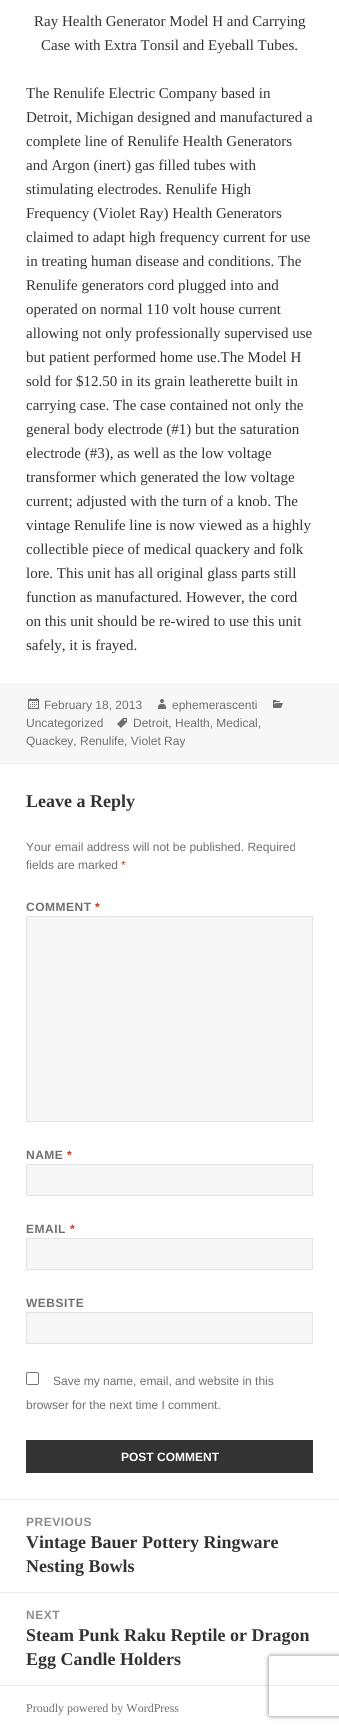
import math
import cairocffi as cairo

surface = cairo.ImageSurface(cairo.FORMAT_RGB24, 339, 1730)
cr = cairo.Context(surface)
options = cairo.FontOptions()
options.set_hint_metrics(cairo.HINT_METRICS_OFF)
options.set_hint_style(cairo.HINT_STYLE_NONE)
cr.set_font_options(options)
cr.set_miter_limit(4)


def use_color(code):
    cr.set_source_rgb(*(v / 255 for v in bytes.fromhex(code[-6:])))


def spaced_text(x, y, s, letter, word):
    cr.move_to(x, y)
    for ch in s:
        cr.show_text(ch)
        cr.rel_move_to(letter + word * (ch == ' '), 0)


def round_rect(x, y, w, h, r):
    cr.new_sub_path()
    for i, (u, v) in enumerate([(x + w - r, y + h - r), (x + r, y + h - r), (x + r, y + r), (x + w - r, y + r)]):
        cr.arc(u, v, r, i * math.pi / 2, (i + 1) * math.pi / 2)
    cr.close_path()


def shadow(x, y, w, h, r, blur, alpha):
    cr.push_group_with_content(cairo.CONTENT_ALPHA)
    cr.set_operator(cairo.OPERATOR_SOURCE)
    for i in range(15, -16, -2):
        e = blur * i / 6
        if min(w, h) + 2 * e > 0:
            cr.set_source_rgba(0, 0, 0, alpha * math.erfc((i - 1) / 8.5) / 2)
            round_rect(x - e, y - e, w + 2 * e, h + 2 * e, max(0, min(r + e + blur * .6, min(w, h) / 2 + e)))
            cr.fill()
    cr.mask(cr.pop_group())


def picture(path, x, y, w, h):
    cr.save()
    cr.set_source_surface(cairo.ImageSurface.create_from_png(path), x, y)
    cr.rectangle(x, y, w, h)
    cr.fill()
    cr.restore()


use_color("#ffffff")
cr.paint()
cr.select_font_face("Liberation Serif")
cr.set_font_size(15)
use_color("#333333")
cr.move_to(34, 26)
cr.show_text("Ray Health Generator Model H and Carrying")
cr.move_to(41, 50)
cr.show_text("Case with Extra Tonsil and Eyeball Tubes.")
cr.move_to(26, 98)
cr.show_text("The Renulife Electric Company based in")
cr.move_to(26, 122)
cr.show_text("Detroit, Michigan designed and manufactured a")
cr.move_to(26, 146)
cr.show_text("complete line of Renulife Health Generators")
cr.move_to(26, 170)
cr.show_text("and Argon (inert) gas filled tubes with")
cr.move_to(26, 194)
cr.show_text("stimulating electrodes. Renulife High")
cr.move_to(26, 218)
cr.show_text("Frequency (Violet Ray) Health Generators")
cr.move_to(26, 242)
cr.show_text("claimed to adapt high frequency current for use")
cr.move_to(26, 266)
cr.show_text("in treating human disease and conditions. The")
cr.move_to(26, 290)
cr.show_text("Renulife generators cord plugged into and")
cr.move_to(26, 314)
cr.show_text("operated on normal 110 volt house current")
cr.move_to(26, 338)
cr.show_text("allowing not only professionally supervised use")
cr.move_to(26, 362)
cr.show_text("but patient performed home use.The Model H")
cr.move_to(26, 386)
cr.show_text("sold for $12.50 in its grain leatherette built in")
cr.move_to(26, 410)
cr.show_text("carrying case. The case contained not only the")
cr.move_to(26, 434)
cr.show_text("general body electrode (#1) but the saturation")
cr.move_to(26, 458)
cr.show_text("electrode (#3), as well as the low voltage")
cr.move_to(26, 482)
cr.show_text("transformer which generated the low voltage")
cr.move_to(26, 506)
cr.show_text("current; adjusted with the turn of a knob. The")
cr.move_to(26, 530)
cr.show_text("vintage Renulife line is now viewed as a highly")
cr.move_to(26, 554)
cr.show_text("collectible piece of medical quackery and folk")
cr.move_to(26, 578)
cr.show_text("lore. This unit has all original glass parts still")
cr.move_to(26, 602)
cr.show_text("function as manufactured. However, the cord")
cr.move_to(26, 626)
cr.show_text("on this unit should be re-wired to use this unit")
cr.move_to(26, 650)
cr.show_text("safely, it is frayed.")
use_color("#f7f7f7")
cr.rectangle(0, 683, 339, 80)
cr.fill()
picture("img1.png", 28, 698, 11, 11)
cr.select_font_face("Liberation Sans")
cr.set_font_size(12)
use_color("#707070")
cr.move_to(44, 709)
cr.show_text("February 18, 2013")
picture("img2.png", 158, 699, 8, 10)
cr.move_to(172, 709)
cr.show_text("ephemerascenti")
picture("img3.png", 273, 700, 10, 8)
cr.move_to(26, 727)
cr.show_text("Uncategorized")
picture("img4.png", 117, 718, 10, 10)
cr.move_to(133, 727)
cr.show_text("Detroit, Health, Medical,")
cr.move_to(26, 745)
cr.show_text("Quackey, Renulife, Violet Ray")
use_color("#ebebeb")
cr.rectangle(0, 763, 339, 1)
cr.fill()
cr.select_font_face("Liberation Serif", cairo.FONT_SLANT_NORMAL, cairo.FONT_WEIGHT_BOLD)
cr.set_font_size(18)
use_color("#333333")
cr.move_to(26, 807)
cr.show_text("Leave a Reply")
cr.select_font_face("Liberation Sans")
cr.set_font_size(12)
use_color("#707070")
cr.move_to(26, 851)
cr.show_text("Your email address will not be published. Required")
cr.move_to(26, 869)
cr.show_text("fields are marked")
use_color("#c0392b")
cr.move_to(121, 869)
cr.show_text("*")
cr.select_font_face("Liberation Sans", cairo.FONT_SLANT_NORMAL, cairo.FONT_WEIGHT_BOLD)
use_color("#707070")
spaced_text(26, 911, "COMMENT", 0.5, 0)
use_color("#c0392b")
spaced_text(95, 911, "*", 0.5, 0)
use_color("#f7f7f7")
cr.rectangle(26.5, 916.5, 286, 205)
cr.fill_preserve()
use_color("#e3e3e3")
cr.set_line_width(1)
cr.stroke()
use_color("#707070")
spaced_text(26, 1159, "NAME", 0.5, 0)
use_color("#c0392b")
spaced_text(67, 1159, "*", 0.5, 0)
use_color("#f7f7f7")
cr.rectangle(26.5, 1164.5, 286, 31)
cr.fill_preserve()
use_color("#e3e3e3")
cr.stroke()
use_color("#707070")
spaced_text(26, 1233, "EMAIL", 0.5, 0)
use_color("#c0392b")
spaced_text(70, 1233, "*", 0.5, 0)
use_color("#f7f7f7")
cr.rectangle(26.5, 1238.5, 286, 31)
cr.fill_preserve()
use_color("#e3e3e3")
cr.stroke()
use_color("#707070")
spaced_text(26, 1307, "WEBSITE", 0.5, 0)
use_color("#f7f7f7")
cr.rectangle(26.5, 1312.5, 286, 31)
cr.fill_preserve()
use_color("#e3e3e3")
cr.stroke()
round_rect(26.5, 1372.5, 12, 12, 1.5)
use_color("#767676")
cr.stroke()
cr.select_font_face("Liberation Sans")
use_color("#707070")
cr.move_to(53, 1385)
cr.show_text("Save my name, email, and website in this")
cr.move_to(26, 1409)
cr.show_text("browser for the next time I comment.")
use_color("#333333")
cr.rectangle(26, 1440, 287, 33)
cr.fill()
cr.select_font_face("Liberation Sans", cairo.FONT_SLANT_NORMAL, cairo.FONT_WEIGHT_BOLD)
use_color("#ffffff")
cr.move_to(121, 1461)
cr.show_text("POST COMMENT")
use_color("#ebebeb")
cr.rectangle(0, 1499, 339, 1)
cr.fill()
use_color("#8d8d8d")
spaced_text(26, 1526, "PREVIOUS", 0.5, 0)
cr.select_font_face("Liberation Serif", cairo.FONT_SLANT_NORMAL, cairo.FONT_WEIGHT_BOLD)
cr.set_font_size(18)
use_color("#333333")
cr.move_to(26, 1548)
cr.show_text("Vintage Bauer Pottery Ringware")
cr.move_to(26, 1572)
cr.show_text("Nesting Bowls")
use_color("#ebebeb")
cr.rectangle(0, 1592, 339, 1)
cr.fill()
cr.select_font_face("Liberation Sans", cairo.FONT_SLANT_NORMAL, cairo.FONT_WEIGHT_BOLD)
cr.set_font_size(12)
use_color("#8d8d8d")
spaced_text(26, 1619, "NEXT", 0.5, 0)
cr.select_font_face("Liberation Serif", cairo.FONT_SLANT_NORMAL, cairo.FONT_WEIGHT_BOLD)
cr.set_font_size(18)
use_color("#333333")
cr.move_to(26, 1641)
cr.show_text("Steam Punk Raku Reptile or Dragon")
cr.move_to(26, 1665)
cr.show_text("Egg Candle Holders")
use_color("#ebebeb")
cr.rectangle(0, 1685, 339, 1)
cr.fill()
cr.select_font_face("Liberation Serif")
cr.set_font_size(12)
use_color("#707070")
cr.move_to(26, 1712)
cr.show_text("Proudly powered by WordPress")
cr.save()
cr.set_fill_rule(cairo.FILL_RULE_EVEN_ODD)
cr.new_path()
cr.move_to(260, 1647)
cr.line_to(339, 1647)
cr.line_to(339, 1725)
cr.line_to(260, 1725)
cr.close_path()
cr.move_to(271, 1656)
cr.line_to(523, 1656)
cr.curve_to(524, 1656, 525, 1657, 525, 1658)
cr.line_to(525, 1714)
cr.curve_to(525, 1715, 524, 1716, 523, 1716)
cr.line_to(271, 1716)
cr.curve_to(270, 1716, 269, 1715, 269, 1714)
cr.line_to(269, 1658)
cr.curve_to(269, 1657, 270, 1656, 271, 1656)
cr.close_path()
cr.clip()
use_color("#808080")
shadow(269, 1656, 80, 60, 2, 2.5, 1)
cr.restore()
surface.write_to_png("result.png")
